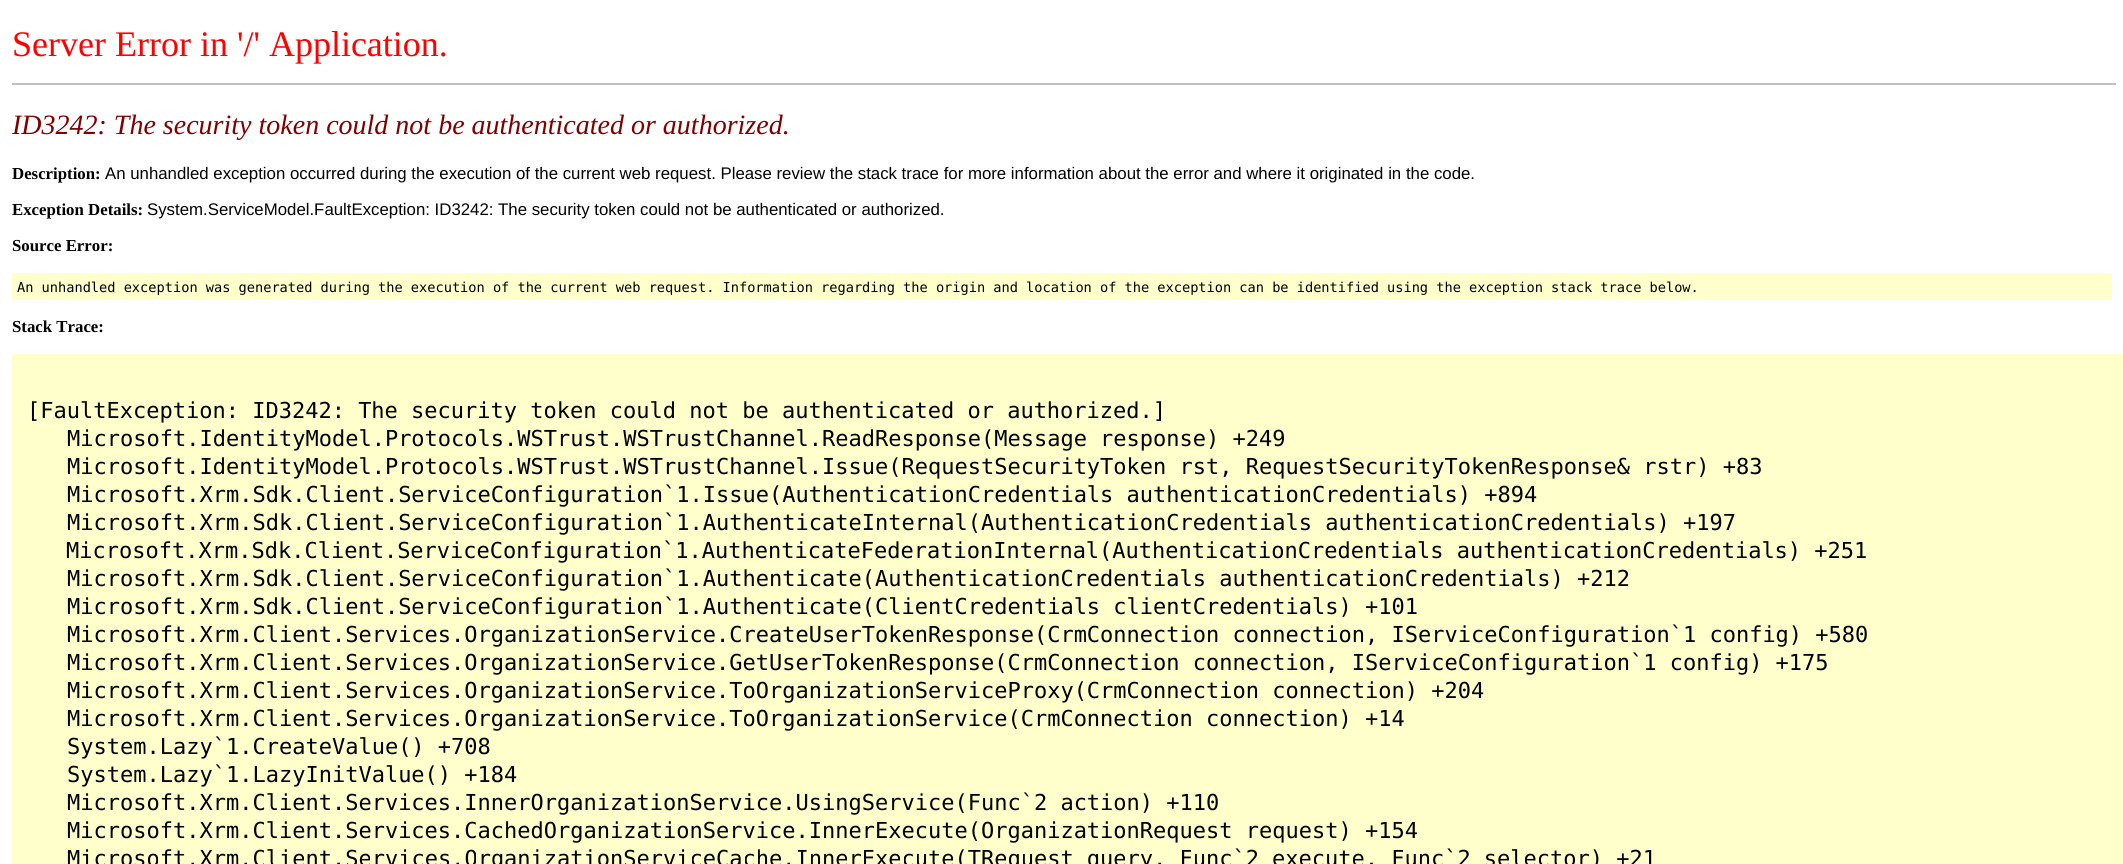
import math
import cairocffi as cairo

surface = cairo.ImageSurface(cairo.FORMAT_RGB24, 2123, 864)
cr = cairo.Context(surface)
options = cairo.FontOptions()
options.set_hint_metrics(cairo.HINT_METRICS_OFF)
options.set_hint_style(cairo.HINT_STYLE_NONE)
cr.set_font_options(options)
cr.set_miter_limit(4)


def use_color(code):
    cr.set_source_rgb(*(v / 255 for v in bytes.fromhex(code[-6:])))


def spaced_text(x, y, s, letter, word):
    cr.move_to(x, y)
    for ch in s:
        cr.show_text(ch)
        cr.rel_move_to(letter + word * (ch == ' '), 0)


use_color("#ffffff")
cr.paint()
cr.select_font_face("Liberation Serif")
cr.set_font_size(36)
use_color("#ff0000")
cr.move_to(12, 56)
cr.show_text("Server Error in '/' Application.")
use_color("#c0c0c0")
cr.rectangle(12, 83, 2104, 2)
cr.fill()
cr.select_font_face("Liberation Serif", cairo.FONT_SLANT_ITALIC)
cr.set_font_size(28)
use_color("#800000")
cr.move_to(12, 134)
cr.show_text("ID3242: The security token could not be authenticated or authorized.")
cr.select_font_face("Liberation Serif", cairo.FONT_SLANT_NORMAL, cairo.FONT_WEIGHT_BOLD)
cr.set_font_size(16.8)
use_color("#000000")
cr.move_to(12, 179)
cr.show_text("Description:")
cr.select_font_face("Liberation Sans")
cr.move_to(105, 179)
cr.show_text("An unhandled exception occurred during the execution of the current web request. Please review the stack trace for more information about the error and where it originated in the code.")
cr.select_font_face("Liberation Serif", cairo.FONT_SLANT_NORMAL, cairo.FONT_WEIGHT_BOLD)
cr.move_to(12, 215)
cr.show_text("Exception Details:")
cr.select_font_face("Liberation Sans")
cr.move_to(147, 215)
cr.show_text("System.ServiceModel.FaultException: ID3242: The security token could not be authenticated or authorized.")
cr.select_font_face("Liberation Serif", cairo.FONT_SLANT_NORMAL, cairo.FONT_WEIGHT_BOLD)
cr.move_to(12, 251)
cr.show_text("Source Error:")
use_color("#ffffcc")
cr.rectangle(12, 273, 2100, 27)
cr.fill()
cr.select_font_face("DejaVu Sans Mono")
cr.set_font_size(13.65)
use_color("#000000")
spaced_text(17, 292, "An unhandled exception was generated during the execution of the current web request. Information regarding the origin and location of the exception can be identified using the exception stack trace below.", 0, -0.1)
cr.select_font_face("Liberation Serif", cairo.FONT_SLANT_NORMAL, cairo.FONT_WEIGHT_BOLD)
cr.set_font_size(16.8)
cr.move_to(12, 332)
cr.show_text("Stack Trace:")
use_color("#ffffcc")
cr.rectangle(12, 354, 2111, 510)
cr.fill()
cr.select_font_face("DejaVu Sans Mono")
cr.set_font_size(22)
use_color("#000000")
cr.move_to(27, 418)
cr.show_text("[FaultException: ID3242: The security token could not be authenticated or authorized.]")
cr.move_to(67, 446)
cr.show_text("Microsoft.IdentityModel.Protocols.WSTrust.WSTrustChannel.ReadResponse(Message response) +249")
cr.move_to(67, 474)
cr.show_text("Microsoft.IdentityModel.Protocols.WSTrust.WSTrustChannel.Issue(RequestSecurityToken rst, RequestSecurityTokenResponse& rstr) +83")
cr.move_to(67, 502)
cr.show_text("Microsoft.Xrm.Sdk.Client.ServiceConfiguration`1.Issue(AuthenticationCredentials authenticationCredentials) +894")
cr.move_to(67, 530)
cr.show_text("Microsoft.Xrm.Sdk.Client.ServiceConfiguration`1.AuthenticateInternal(AuthenticationCredentials authenticationCredentials) +197")
cr.move_to(66, 558)
cr.show_text("Microsoft.Xrm.Sdk.Client.ServiceConfiguration`1.AuthenticateFederationInternal(AuthenticationCredentials authenticationCredentials) +251")
cr.move_to(67, 586)
cr.show_text("Microsoft.Xrm.Sdk.Client.ServiceConfiguration`1.Authenticate(AuthenticationCredentials authenticationCredentials) +212")
cr.move_to(67, 614)
cr.show_text("Microsoft.Xrm.Sdk.Client.ServiceConfiguration`1.Authenticate(ClientCredentials clientCredentials) +101")
cr.move_to(67, 642)
cr.show_text("Microsoft.Xrm.Client.Services.OrganizationService.CreateUserTokenResponse(CrmConnection connection, IServiceConfiguration`1 config) +580")
cr.move_to(67, 670)
cr.show_text("Microsoft.Xrm.Client.Services.OrganizationService.GetUserTokenResponse(CrmConnection connection, IServiceConfiguration`1 config) +175")
cr.move_to(67, 698)
cr.show_text("Microsoft.Xrm.Client.Services.OrganizationService.ToOrganizationServiceProxy(CrmConnection connection) +204")
cr.move_to(67, 726)
cr.show_text("Microsoft.Xrm.Client.Services.OrganizationService.ToOrganizationService(CrmConnection connection) +14")
cr.move_to(67, 754)
cr.show_text("System.Lazy`1.CreateValue() +708")
cr.move_to(67, 782)
cr.show_text("System.Lazy`1.LazyInitValue() +184")
cr.move_to(67, 810)
cr.show_text("Microsoft.Xrm.Client.Services.InnerOrganizationService.UsingService(Func`2 action) +110")
cr.move_to(67, 838)
cr.show_text("Microsoft.Xrm.Client.Services.CachedOrganizationService.InnerExecute(OrganizationRequest request) +154")
spaced_text(67, 866, "Microsoft.Xrm.Client.Services.OrganizationServiceCache.InnerExecute(TRequest query, Func`2 execute, Func`2 selector) +21", 0, -0.1)
surface.write_to_png("result.png")
